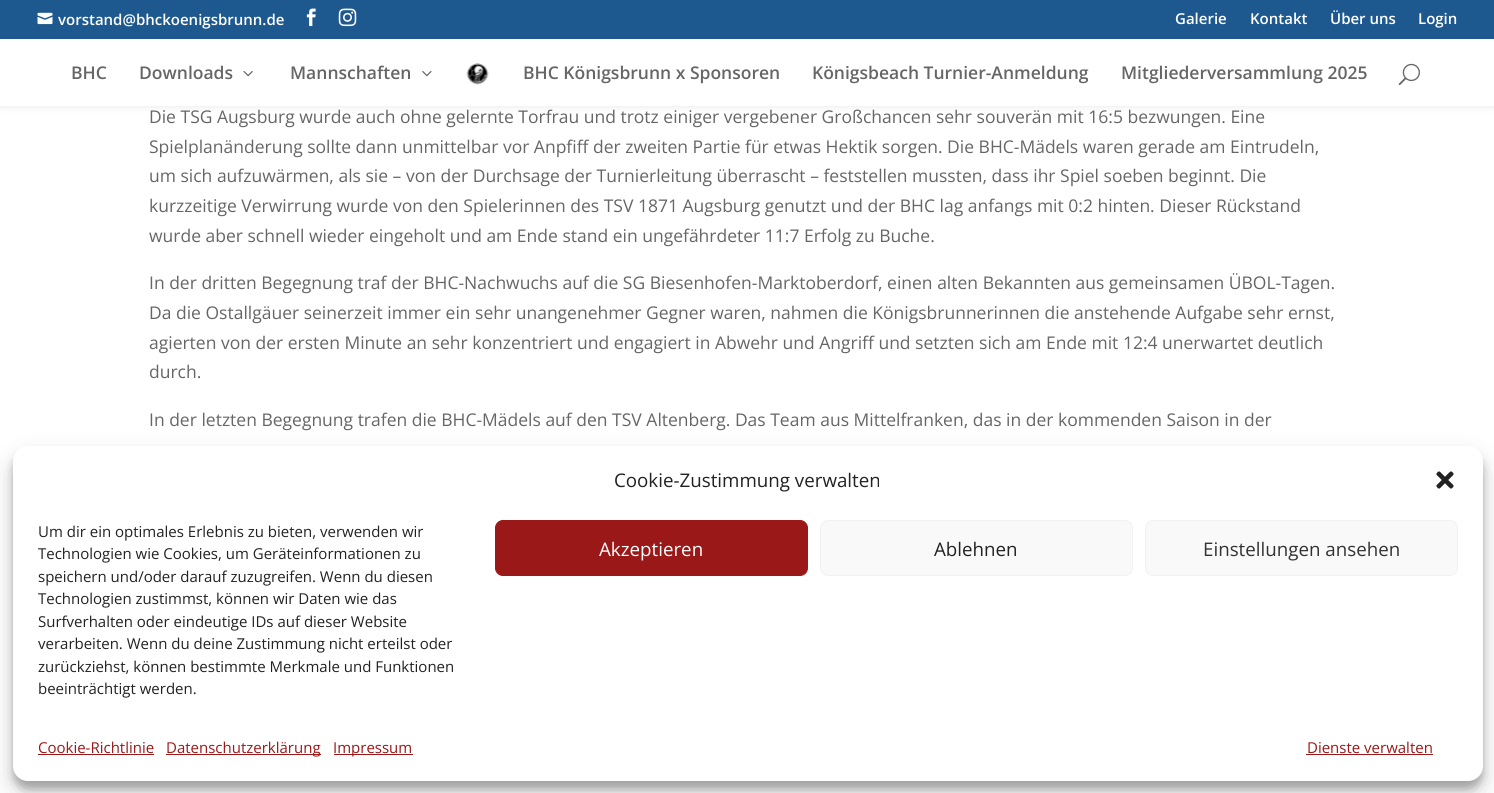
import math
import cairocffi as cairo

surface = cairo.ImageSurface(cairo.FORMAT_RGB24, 1494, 793)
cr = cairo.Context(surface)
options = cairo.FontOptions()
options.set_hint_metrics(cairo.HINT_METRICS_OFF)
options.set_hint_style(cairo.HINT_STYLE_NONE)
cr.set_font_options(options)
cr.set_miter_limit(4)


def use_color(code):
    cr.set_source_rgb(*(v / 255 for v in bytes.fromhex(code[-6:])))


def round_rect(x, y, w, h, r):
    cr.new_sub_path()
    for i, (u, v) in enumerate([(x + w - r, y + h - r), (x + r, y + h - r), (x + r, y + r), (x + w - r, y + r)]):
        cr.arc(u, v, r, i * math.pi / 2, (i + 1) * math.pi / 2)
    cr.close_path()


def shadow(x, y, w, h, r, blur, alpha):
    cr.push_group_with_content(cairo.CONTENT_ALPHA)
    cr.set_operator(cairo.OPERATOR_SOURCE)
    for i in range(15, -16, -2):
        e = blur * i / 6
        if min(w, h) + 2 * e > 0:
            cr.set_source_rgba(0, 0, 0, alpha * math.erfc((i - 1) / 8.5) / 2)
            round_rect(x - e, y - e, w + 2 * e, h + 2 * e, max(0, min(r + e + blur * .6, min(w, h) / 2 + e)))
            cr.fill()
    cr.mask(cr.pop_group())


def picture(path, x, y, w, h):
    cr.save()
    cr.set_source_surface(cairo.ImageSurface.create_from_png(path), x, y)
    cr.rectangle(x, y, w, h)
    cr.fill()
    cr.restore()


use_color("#ffffff")
cr.paint()
use_color("#000000")
shadow(0, 39, 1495, 67, 0, 4.5, 0.1)
use_color("#1d588e")
cr.rectangle(0, 0, 1494, 39)
cr.fill()
picture("img1.png", 37, 12, 16, 13)
cr.select_font_face("Open Sans SemiBold")
cr.set_font_size(15)
use_color("#ffffff")
cr.move_to(58, 25)
cr.show_text("vorstand@bhckoenigsbrunn.de")
picture("img2.png", 306, 8, 10, 19)
picture("img3.png", 338, 8, 19, 19)
cr.move_to(1175, 24)
cr.show_text("Galerie")
cr.move_to(1250, 24)
cr.show_text("Kontakt")
cr.move_to(1330, 24)
cr.show_text("Über uns")
cr.move_to(1418, 24)
cr.show_text("Login")
cr.rectangle(0, 39, 1494, 67)
cr.fill()
cr.set_font_size(17.5)
use_color("#666666")
cr.move_to(71, 79)
cr.show_text("BHC")
cr.move_to(139, 79)
cr.show_text("Downloads")
picture("img4.png", 243, 71, 10, 6)
cr.move_to(290, 79)
cr.show_text("Mannschaften")
picture("img5.png", 422, 71, 10, 6)
picture("img6.png", 466, 63, 23, 22)
cr.move_to(523, 79)
cr.show_text("BHC Königsbrunn x Sponsoren")
cr.move_to(812, 79)
cr.show_text("Königsbeach Turnier-Anmeldung")
cr.move_to(1121, 79)
cr.show_text("Mitgliederversammlung 2025")
picture("img7.png", 1398, 63, 22, 23)
cr.select_font_face("Open Sans")
cr.move_to(149, 123)
cr.show_text("Die TSG Augsburg wurde auch ohne gelernte Torfrau und trotz einiger vergebener Großchancen sehr souverän mit 16:5 bezwungen. Eine")
cr.move_to(149, 153)
cr.show_text("Spielplanänderung sollte dann unmittelbar vor Anpfiff der zweiten Partie für etwas Hektik sorgen. Die BHC-Mädels waren gerade am Eintrudeln,")
cr.move_to(149, 182)
cr.show_text("um sich aufzuwärmen, als sie – von der Durchsage der Turnierleitung überrascht – feststellen mussten, dass ihr Spiel soeben beginnt. Die")
cr.move_to(149, 212)
cr.show_text("kurzzeitige Verwirrung wurde von den Spielerinnen des TSV 1871 Augsburg genutzt und der BHC lag anfangs mit 0:2 hinten. Dieser Rückstand")
cr.move_to(149, 242)
cr.show_text("wurde aber schnell wieder eingeholt und am Ende stand ein ungefährdeter 11:7 Erfolg zu Buche.")
cr.move_to(149, 289)
cr.show_text("In der dritten Begegnung traf der BHC-Nachwuchs auf die SG Biesenhofen-Marktoberdorf, einen alten Bekannten aus gemeinsamen ÜBOL-Tagen.")
cr.move_to(149, 319)
cr.show_text("Da die Ostallgäuer seinerzeit immer ein sehr unangenehmer Gegner waren, nahmen die Königsbrunnerinnen die anstehende Aufgabe sehr ernst,")
cr.move_to(149, 349)
cr.show_text("agierten von der ersten Minute an sehr konzentriert und engagiert in Abwehr und Angriff und setzten sich am Ende mit 12:4 unerwartet deutlich")
cr.move_to(149, 378)
cr.show_text("durch.")
cr.move_to(149, 426)
cr.show_text("In der letzten Begegnung trafen die BHC-Mädels auf den TSV Altenberg. Das Team aus Mittelfranken, das in der kommenden Saison in der")
use_color("#000000")
shadow(13, 454, 1470, 335, 15, 4, 0.23)
shadow(13, 459, 1470, 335, 15, 12.5, 0.19)
use_color("#ffffff")
round_rect(13, 446, 1470, 335, 15)
cr.fill()
cr.set_font_size(18.75)
use_color("#222222")
cr.move_to(614, 487)
cr.show_text("Cookie-Zustimmung verwalten")
picture("img8.png", 1436, 471, 18, 18)
cr.set_font_size(15)
cr.move_to(38, 537)
cr.show_text("Um dir ein optimales Erlebnis zu bieten, verwenden wir")
cr.move_to(38, 559)
cr.show_text("Technologien wie Cookies, um Geräteinformationen zu")
cr.move_to(38, 582)
cr.show_text("speichern und/oder darauf zuzugreifen. Wenn du diesen")
cr.move_to(38, 604)
cr.show_text("Technologien zustimmst, können wir Daten wie das")
cr.move_to(38, 627)
cr.show_text("Surfverhalten oder eindeutige IDs auf dieser Website")
cr.move_to(38, 649)
cr.show_text("verarbeiten. Wenn du deine Zustimmung nicht erteilst oder")
cr.move_to(38, 672)
cr.show_text("zurückziehst, können bestimmte Merkmale und Funktionen")
cr.move_to(38, 694)
cr.show_text("beeinträchtigt werden.")
use_color("#9b1818")
round_rect(495.5, 520.5, 312, 55, 7.5)
cr.fill_preserve()
cr.set_line_width(1)
cr.stroke()
cr.set_font_size(18.75)
use_color("#ffffff")
cr.move_to(599, 556)
cr.show_text("Akzeptieren")
use_color("#f9f9f9")
round_rect(820.5, 520.5, 312, 55, 7.5)
cr.fill_preserve()
use_color("#f2f2f2")
cr.stroke()
use_color("#222222")
cr.move_to(934, 556)
cr.show_text("Ablehnen")
use_color("#f9f9f9")
round_rect(1145.5, 520.5, 312, 55, 7.5)
cr.fill_preserve()
use_color("#f2f2f2")
cr.stroke()
use_color("#333333")
cr.move_to(1203, 556)
cr.show_text("Einstellungen ansehen")
cr.set_font_size(15)
use_color("#9b1818")
cr.move_to(38, 753)
cr.show_text("Cookie-Richtlinie")
cr.rectangle(38, 754, 116, 1)
cr.fill()
cr.rectangle(166, 754, 155, 1)
cr.fill()
cr.move_to(166, 753)
cr.show_text("Datenschutzerklärung")
cr.rectangle(334, 754, 79, 1)
cr.fill()
cr.move_to(333, 753)
cr.show_text("Impressum")
cr.move_to(1307, 753)
cr.show_text("Dienste verwalten")
cr.rectangle(1306, 754, 127, 1)
cr.fill()
surface.write_to_png("result.png")
